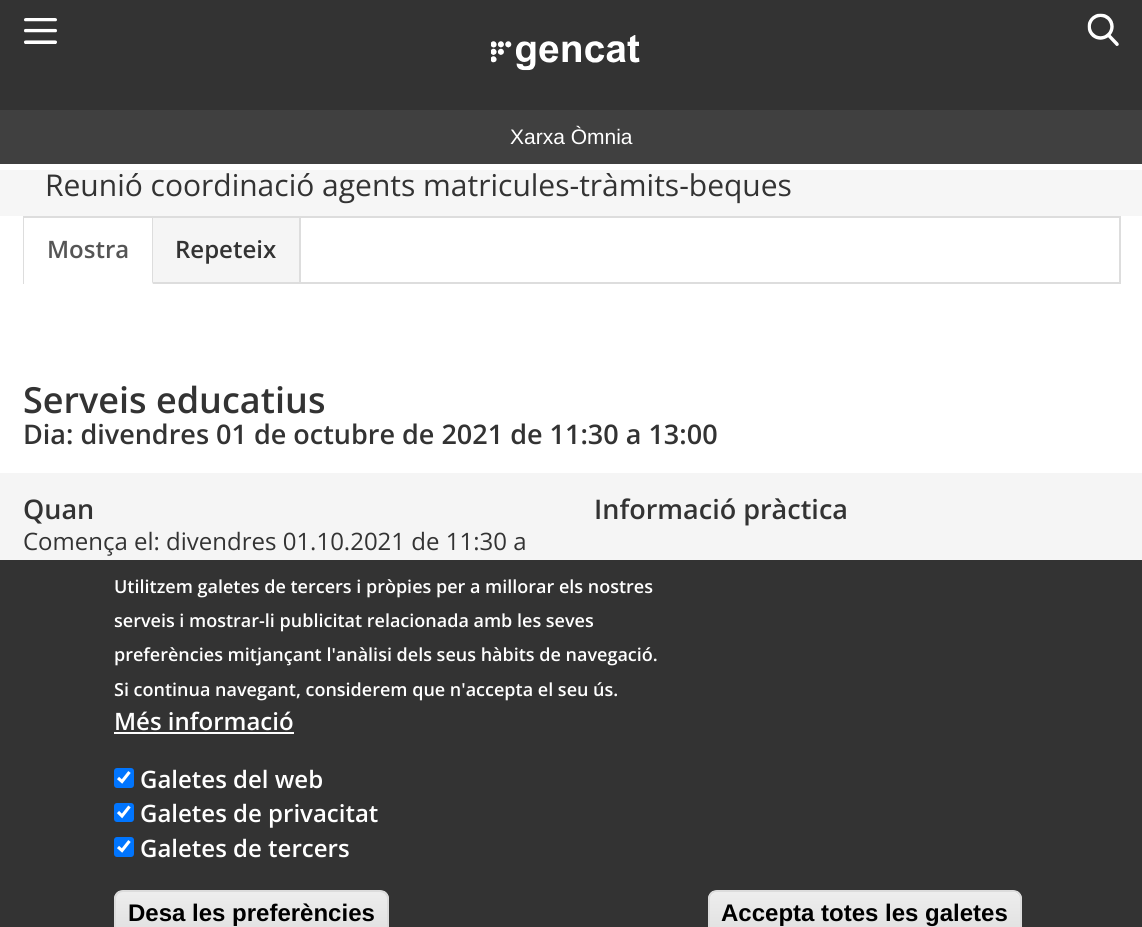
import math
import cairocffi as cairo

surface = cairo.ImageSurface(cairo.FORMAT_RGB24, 1142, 927)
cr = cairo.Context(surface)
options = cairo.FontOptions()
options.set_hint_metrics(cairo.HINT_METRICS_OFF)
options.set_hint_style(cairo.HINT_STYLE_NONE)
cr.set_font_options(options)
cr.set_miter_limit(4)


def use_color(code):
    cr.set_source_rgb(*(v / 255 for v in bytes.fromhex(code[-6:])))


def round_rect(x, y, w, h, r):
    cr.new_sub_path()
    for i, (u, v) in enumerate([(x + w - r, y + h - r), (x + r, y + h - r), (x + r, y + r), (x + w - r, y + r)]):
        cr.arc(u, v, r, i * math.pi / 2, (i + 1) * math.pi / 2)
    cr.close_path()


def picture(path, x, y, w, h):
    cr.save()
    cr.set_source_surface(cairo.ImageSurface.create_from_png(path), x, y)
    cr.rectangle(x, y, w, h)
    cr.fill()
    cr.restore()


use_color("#ffffff")
cr.paint()
use_color("#333333")
cr.rectangle(0, 0, 1142, 110)
cr.fill()
picture("img1.png", 24, 18, 33, 26)
picture("img2.png", 491, 35, 149, 36)
picture("img3.png", 1087, 13, 32, 33)
use_color("#404040")
cr.rectangle(0, 110, 1142, 54)
cr.fill()
cr.select_font_face("Liberation Sans")
cr.set_font_size(21)
use_color("#ffffff")
cr.move_to(510, 144)
cr.show_text("Xarxa Òmnia")
use_color("#f6f6f6")
cr.rectangle(0, 170, 1142, 46)
cr.fill()
cr.select_font_face("Open Sans")
cr.set_font_size(30)
use_color("#333333")
cr.move_to(45, 196)
cr.show_text("Reunió coordinació agents matricules-tràmits-beques")
cr.rectangle(24, 217, 1096, 66)
use_color("#dddddd")
cr.stroke()
use_color("#ffffff")
cr.rectangle(24, 218, 129, 66)
cr.fill()
use_color("#dddddd")
cr.new_path()
cr.move_to(153, 218)
cr.line_to(153, 284)
cr.line_to(152, 282)
cr.line_to(152, 218)
cr.close_path()
cr.fill()
cr.select_font_face("Open Sans SemiBold")
cr.set_font_size(24)
use_color("#555555")
cr.move_to(47, 258)
cr.show_text("Mostra")
use_color("#f5f5f5")
cr.rectangle(153, 218, 146, 64)
cr.fill()
use_color("#dddddd")
cr.rectangle(299, 218, 2, 66)
cr.fill()
use_color("#333333")
cr.move_to(175, 258)
cr.show_text("Repeteix")
cr.set_font_size(36)
cr.move_to(23, 413)
cr.show_text("Serveis educatius")
cr.set_font_size(27)
cr.move_to(23, 444)
cr.show_text("Dia: divendres 01 de octubre de 2021 de 11:30 a 13:00")
use_color("#f5f5f5")
cr.rectangle(0, 473, 1142, 87)
cr.fill()
use_color("#333333")
cr.move_to(23, 519)
cr.show_text("Quan")
cr.select_font_face("Open Sans")
cr.set_font_size(24)
cr.move_to(23, 550)
cr.show_text("Comença el: divendres 01.10.2021 de 11:30 a")
cr.select_font_face("Open Sans SemiBold")
cr.set_font_size(27)
cr.move_to(594, 519)
cr.show_text("Informació pràctica")
cr.rectangle(0, 560, 1142, 367)
cr.fill()
cr.set_font_size(18)
use_color("#ffffff")
cr.move_to(114, 593)
cr.show_text("Utilitzem galetes de tercers i pròpies per a millorar els nostres")
cr.move_to(114, 627)
cr.show_text("serveis i mostrar-li publicitat relacionada amb les seves")
cr.move_to(114, 661)
cr.show_text("preferències mitjançant l'anàlisi dels seus hàbits de navegació.")
cr.move_to(114, 696)
cr.show_text("Si continua navegant, considerem que n'accepta el seu ús.")
cr.set_font_size(24)
cr.move_to(114, 730)
cr.show_text("Més informació")
cr.rectangle(114, 732, 180, 2)
cr.fill()
use_color("#0075ff")
round_rect(114, 768, 20, 20, 3)
cr.fill()
cr.new_path()
cr.move_to(118, 778)
cr.line_to(122, 781.5)
cr.line_to(129.5, 772)
use_color("#ffffff")
cr.set_line_width(3.1)
cr.stroke()
cr.move_to(140, 788)
cr.show_text("Galetes del web")
use_color("#0075ff")
round_rect(114, 803, 20, 19, 3)
cr.fill()
cr.new_path()
cr.move_to(118, 812)
cr.line_to(122, 816)
cr.line_to(129.5, 806.5)
use_color("#ffffff")
cr.stroke()
cr.move_to(140, 822)
cr.show_text("Galetes de privacitat")
use_color("#0075ff")
round_rect(114, 837, 20, 20, 3)
cr.fill()
cr.new_path()
cr.move_to(118, 847)
cr.line_to(122, 850.5)
cr.line_to(129.5, 841)
use_color("#ffffff")
cr.stroke()
cr.move_to(140, 857)
cr.show_text("Galetes de tercers")
cr.save()
round_rect(114, 890, 275, 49, 9)
cr.clip()
gradient = cairo.LinearGradient(251, 891, 251, 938)
gradient.add_color_stop_rgba(0.05, 0.929, 0.929, 0.929, 1)
gradient.add_color_stop_rgba(1, 0.875, 0.875, 0.875, 1)
cr.set_source(gradient)
cr.rectangle(114, 891, 275, 36)
cr.fill()
cr.restore()
round_rect(115, 891, 273, 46, 8)
use_color("#dcdcdc")
cr.set_line_width(2)
cr.stroke()
cr.select_font_face("Liberation Sans", cairo.FONT_SLANT_NORMAL, cairo.FONT_WEIGHT_BOLD)
use_color("#000000")
cr.move_to(128, 921)
cr.show_text("Desa les preferències")
cr.save()
round_rect(708, 890, 314, 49, 9)
cr.clip()
gradient = cairo.LinearGradient(865, 891, 865, 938)
gradient.add_color_stop_rgba(0.05, 0.929, 0.929, 0.929, 1)
gradient.add_color_stop_rgba(1, 0.875, 0.875, 0.875, 1)
cr.set_source(gradient)
cr.rectangle(708, 891, 314, 36)
cr.fill()
cr.restore()
use_color("#ffffff")
cr.new_path()
cr.move_to(717, 892)
cr.line_to(1012, 892)
cr.curve_to(1017, 892, 1020, 896, 1020, 900)
cr.curve_to(1020, 895, 1017, 891, 1012, 891)
cr.line_to(716, 891)
cr.curve_to(712, 892, 710, 896, 710, 900)
cr.curve_to(710, 896, 713, 892, 717, 892)
cr.close_path()
cr.fill()
round_rect(709, 891, 312, 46, 8)
use_color("#dcdcdc")
cr.stroke()
use_color("#000000")
cr.move_to(721, 921)
cr.show_text("Accepta totes les galetes")
surface.write_to_png("result.png")
